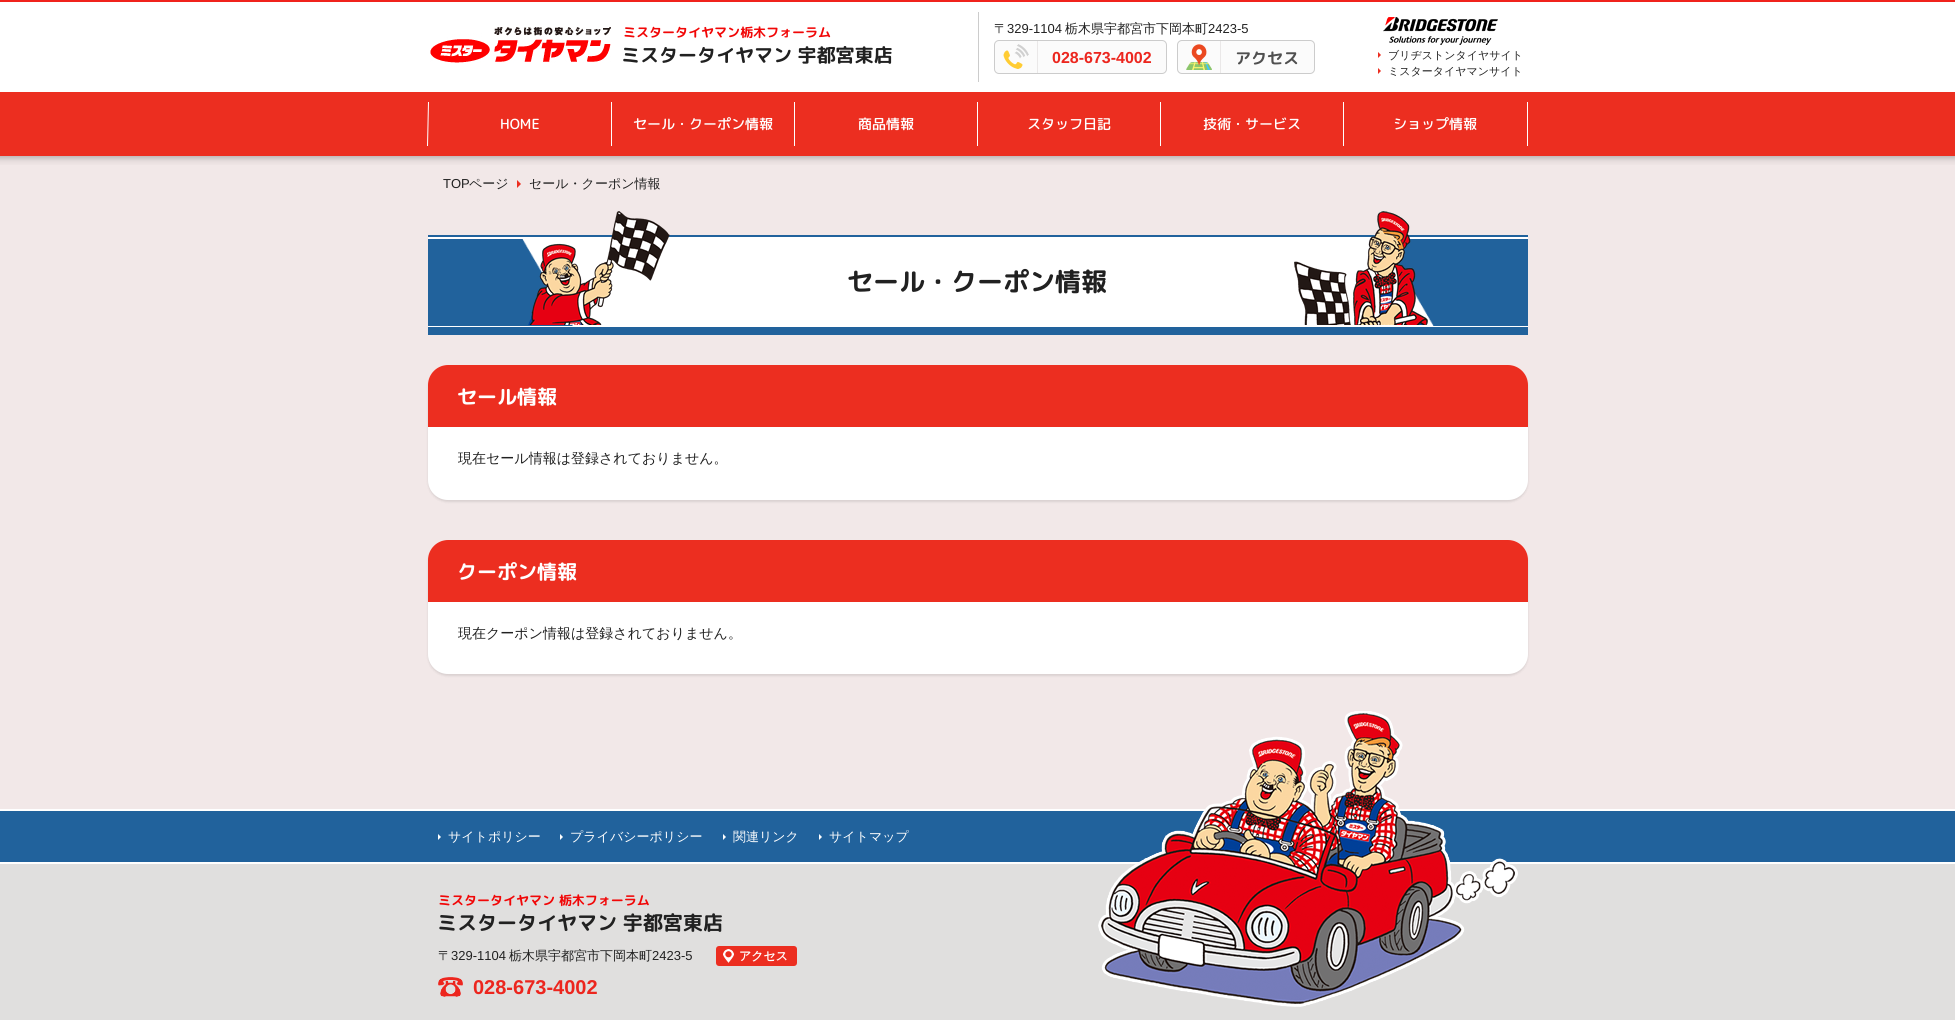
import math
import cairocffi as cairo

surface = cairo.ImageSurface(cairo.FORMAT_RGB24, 1955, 1020)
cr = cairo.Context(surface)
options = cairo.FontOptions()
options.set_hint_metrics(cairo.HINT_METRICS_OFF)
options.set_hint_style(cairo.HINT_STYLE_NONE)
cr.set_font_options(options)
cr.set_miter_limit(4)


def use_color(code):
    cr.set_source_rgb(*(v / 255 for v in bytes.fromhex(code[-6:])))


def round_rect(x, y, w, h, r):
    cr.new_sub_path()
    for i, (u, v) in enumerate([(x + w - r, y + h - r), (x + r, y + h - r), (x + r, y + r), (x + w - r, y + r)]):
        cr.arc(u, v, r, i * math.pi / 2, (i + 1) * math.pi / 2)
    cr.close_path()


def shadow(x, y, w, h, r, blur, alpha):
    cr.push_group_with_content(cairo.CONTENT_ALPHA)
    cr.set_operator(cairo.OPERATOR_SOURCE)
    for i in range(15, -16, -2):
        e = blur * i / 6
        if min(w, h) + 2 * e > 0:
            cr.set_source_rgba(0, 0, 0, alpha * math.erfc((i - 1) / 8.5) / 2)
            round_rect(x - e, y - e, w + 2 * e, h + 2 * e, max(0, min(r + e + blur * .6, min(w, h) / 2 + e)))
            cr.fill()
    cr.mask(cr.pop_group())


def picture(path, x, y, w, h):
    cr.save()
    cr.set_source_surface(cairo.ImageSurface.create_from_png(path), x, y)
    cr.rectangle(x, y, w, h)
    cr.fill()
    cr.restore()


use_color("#f2e8e8")
cr.paint()
use_color("#ffffff")
cr.rectangle(0, 2, 1955, 90)
cr.fill()
use_color("#f0231c")
cr.rectangle(0, 0, 1955, 2)
cr.fill()
picture("img1.png", 430, 27, 181, 36)
cr.select_font_face("Rounded Mplus 1c Bold", cairo.FONT_SLANT_NORMAL, cairo.FONT_WEIGHT_BOLD)
cr.set_font_size(13)
use_color("#f10707")
cr.move_to(623, 37)
cr.show_text("ミスタータイヤマン栃木フォーラム")
cr.set_font_size(19)
use_color("#212121")
cr.move_to(621, 62)
cr.show_text("ミスタータイヤマン 宇都宮東店")
use_color("#cccccc")
cr.rectangle(978, 12, 1, 70)
cr.fill()
cr.select_font_face("WenQuanYi Zen Hei Medium")
cr.set_font_size(13)
use_color("#212121")
cr.move_to(994, 33)
cr.show_text("〒")
cr.select_font_face("Liberation Sans")
cr.move_to(1007, 33)
cr.show_text("329-1104")
cr.select_font_face("WenQuanYi Zen Hei Medium")
cr.move_to(1065, 33)
cr.show_text("栃木県宇都宮市下岡本町")
cr.select_font_face("Liberation Sans")
cr.move_to(1208, 33)
cr.show_text("2423-5")
use_color("#fbfbfb")
round_rect(994.5, 40.5, 172, 33, 4.5)
cr.fill_preserve()
use_color("#cccccc")
cr.set_line_width(1)
cr.stroke()
picture("img2.png", 1003, 44, 26, 25)
use_color("#eae8e8")
cr.rectangle(1037, 41, 1, 32)
cr.fill()
cr.select_font_face("Liberation Sans", cairo.FONT_SLANT_NORMAL, cairo.FONT_WEIGHT_BOLD)
cr.set_font_size(16)
use_color("#ec261e")
cr.move_to(1052, 63)
cr.show_text("028-673-4002")
use_color("#fbfbfb")
cr.new_path()
cr.move_to(1182, 40)
cr.line_to(1310, 40)
cr.curve_to(1313, 40, 1315, 42, 1315, 45)
cr.line_to(1315, 69)
cr.curve_to(1315, 72, 1313, 74, 1310, 74)
cr.line_to(1182, 74)
cr.curve_to(1179, 74, 1177, 72, 1177, 69)
cr.line_to(1177, 45)
cr.curve_to(1177, 42, 1179, 40, 1182, 40)
cr.close_path()
cr.fill()
cr.new_path()
cr.move_to(1182, 40.5)
cr.line_to(1310, 40.5)
cr.curve_to(1312.5, 40.5, 1314.5, 42.5, 1314.5, 45)
cr.line_to(1314.5, 69)
cr.curve_to(1314.5, 71.5, 1312.5, 73.5, 1310, 73.5)
cr.line_to(1182, 73.5)
cr.curve_to(1179.5, 73.5, 1177.5, 71.5, 1177.5, 69)
cr.line_to(1177.5, 45)
cr.curve_to(1177.5, 42.5, 1179.5, 40.5, 1182, 40.5)
cr.close_path()
use_color("#cccccc")
cr.stroke()
picture("img3.png", 1186, 44, 26, 26)
use_color("#eae8e8")
cr.rectangle(1220, 41, 1, 32)
cr.fill()
cr.select_font_face("Rounded Mplus 1c Bold", cairo.FONT_SLANT_NORMAL, cairo.FONT_WEIGHT_BOLD)
use_color("#505050")
cr.move_to(1235, 64)
cr.show_text("アクセス")
picture("img4.png", 1383, 17, 115, 28)
use_color("#ec2e20")
cr.new_path()
cr.move_to(1378, 58)
cr.line_to(1378, 52)
cr.line_to(1381, 55)
cr.close_path()
cr.fill()
cr.select_font_face("WenQuanYi Zen Hei Medium")
cr.set_font_size(11)
use_color("#212121")
cr.move_to(1388, 59)
cr.show_text("ブリヂストンタイヤサイト")
use_color("#ec2e20")
cr.new_path()
cr.move_to(1378, 74)
cr.line_to(1378, 68)
cr.line_to(1381, 71)
cr.close_path()
cr.fill()
use_color("#212121")
cr.move_to(1388, 75)
cr.show_text("ミスタータイヤマンサイト")
use_color("#ec2e20")
cr.rectangle(0, 92, 1955, 64)
cr.fill()
use_color("#ffffff")
cr.new_path()
cr.move_to(428, 102)
cr.line_to(429, 102)
cr.line_to(428, 146)
cr.line_to(427, 146)
cr.close_path()
cr.fill()
cr.rectangle(611, 102, 1, 44)
cr.fill()
cr.select_font_face("Rounded Mplus 1c Medium")
cr.set_font_size(14)
cr.move_to(500, 129)
cr.show_text("HOME")
cr.rectangle(794, 102, 1, 44)
cr.fill()
cr.move_to(633, 129)
cr.show_text("セール・クーポン情報")
cr.rectangle(977, 102, 1, 44)
cr.fill()
cr.move_to(858, 129)
cr.show_text("商品情報")
cr.rectangle(1160, 102, 1, 44)
cr.fill()
cr.move_to(1027, 129)
cr.show_text("スタッフ日記")
cr.rectangle(1343, 102, 1, 44)
cr.fill()
cr.move_to(1203, 129)
cr.show_text("技術・サービス")
cr.rectangle(1527, 102, 1, 44)
cr.fill()
cr.move_to(1393, 129)
cr.show_text("ショップ情報")
gradient = cairo.LinearGradient(978, 156, 978, 166)
gradient.add_color_stop_rgba(0, 0.761, 0.729, 0.729, 1)
gradient.add_color_stop_rgba(0.5, 0.902, 0.863, 0.863, 1)
gradient.add_color_stop_rgba(1, 0.949, 0.91, 0.91, 1)
cr.set_source(gradient)
cr.rectangle(0, 156, 1955, 9)
cr.fill()
cr.select_font_face("Liberation Sans")
cr.set_font_size(13)
use_color("#212121")
cr.move_to(443, 188)
cr.show_text("TOP")
cr.select_font_face("WenQuanYi Zen Hei Medium")
cr.move_to(469, 188)
cr.show_text("ページ")
use_color("#ec2e20")
cr.new_path()
cr.move_to(517, 188)
cr.line_to(517, 180)
cr.line_to(521, 184)
cr.close_path()
cr.fill()
use_color("#212121")
cr.move_to(529, 188)
cr.show_text("セール・クーポン情報")
use_color("#ffffff")
cr.rectangle(428, 237, 1100, 90)
cr.fill()
picture("img5.png", 428, 239, 1100, 87)
use_color("#21629c")
cr.rectangle(428, 235, 1100, 2)
cr.fill()
cr.rectangle(428, 327, 1100, 8)
cr.fill()
picture("img6.png", 528, 211, 142, 114)
cr.select_font_face("Rounded Mplus 1c Bold", cairo.FONT_SLANT_NORMAL, cairo.FONT_WEIGHT_BOLD)
cr.set_font_size(26)
use_color("#212121")
cr.move_to(847, 291)
cr.show_text("セール・クーポン情報")
picture("img7.png", 1294, 211, 134, 114)
use_color("#000000")
shadow(428, 367, 1100, 135, 20, 1, 0.1)
use_color("#ffffff")
round_rect(428, 365, 1100, 135, 20)
cr.fill()
use_color("#ec2e20")
cr.new_path()
cr.move_to(448, 365)
cr.line_to(1508, 365)
cr.curve_to(1519, 365, 1528, 374, 1528, 385)
cr.line_to(1528, 427)
cr.line_to(428, 427)
cr.line_to(428, 385)
cr.curve_to(428, 374, 437, 365, 448, 365)
cr.close_path()
cr.fill()
cr.set_font_size(20)
use_color("#ffffff")
cr.move_to(457, 404)
cr.show_text("セール情報")
cr.select_font_face("WenQuanYi Zen Hei Medium")
cr.set_font_size(14)
use_color("#212121")
cr.move_to(458, 463)
cr.show_text("現在セール情報は登録されておりません。")
use_color("#000000")
shadow(428, 542, 1100, 134, 20, 1, 0.1)
use_color("#ffffff")
round_rect(428, 540, 1100, 134, 20)
cr.fill()
use_color("#ec2e20")
cr.new_path()
cr.move_to(448, 540)
cr.line_to(1508, 540)
cr.curve_to(1519, 540, 1528, 549, 1528, 560)
cr.line_to(1528, 602)
cr.line_to(428, 602)
cr.line_to(428, 560)
cr.curve_to(428, 549, 437, 540, 448, 540)
cr.close_path()
cr.fill()
cr.select_font_face("Rounded Mplus 1c Bold", cairo.FONT_SLANT_NORMAL, cairo.FONT_WEIGHT_BOLD)
cr.set_font_size(20)
use_color("#ffffff")
cr.move_to(457, 579)
cr.show_text("クーポン情報")
cr.select_font_face("WenQuanYi Zen Hei Medium")
cr.set_font_size(14)
use_color("#212121")
cr.move_to(458, 638)
cr.show_text("現在クーポン情報は登録されておりません。")
use_color("#e0dfde")
cr.rectangle(0, 864, 1955, 156)
cr.fill()
use_color("#ffffff")
cr.rectangle(0, 809, 1955, 2)
cr.fill()
use_color("#21629c")
cr.rectangle(0, 811, 1955, 51)
cr.fill()
use_color("#ffffff")
cr.rectangle(0, 862, 1955, 2)
cr.fill()
cr.new_path()
cr.move_to(438, 840)
cr.line_to(438, 834)
cr.line_to(441, 837)
cr.close_path()
cr.fill()
cr.set_font_size(13)
cr.move_to(448, 841)
cr.show_text("サイトポリシー")
cr.new_path()
cr.move_to(560, 840)
cr.line_to(560, 834)
cr.line_to(563, 837)
cr.close_path()
cr.fill()
cr.move_to(570, 841)
cr.show_text("プライバシーポリシー")
cr.new_path()
cr.move_to(723, 840)
cr.line_to(723, 834)
cr.line_to(726, 837)
cr.close_path()
cr.fill()
cr.move_to(733, 841)
cr.show_text("関連リンク")
cr.new_path()
cr.move_to(819, 840)
cr.line_to(819, 834)
cr.line_to(822, 837)
cr.close_path()
cr.fill()
cr.move_to(829, 841)
cr.show_text("サイトマップ")
picture("img8.png", 1098, 711, 420, 296)
cr.select_font_face("Rounded Mplus 1c Bold", cairo.FONT_SLANT_NORMAL, cairo.FONT_WEIGHT_BOLD)
use_color("#f10707")
cr.move_to(438, 905)
cr.show_text("ミスタータイヤマン 栃木フォーラム")
cr.set_font_size(20)
use_color("#212121")
cr.move_to(437, 930)
cr.show_text("ミスタータイヤマン 宇都宮東店")
cr.select_font_face("WenQuanYi Zen Hei Medium")
cr.set_font_size(13)
cr.move_to(438, 960)
cr.show_text("〒")
cr.select_font_face("Liberation Sans")
cr.move_to(451, 960)
cr.show_text("329-1104")
cr.select_font_face("WenQuanYi Zen Hei Medium")
cr.move_to(509, 960)
cr.show_text("栃木県宇都宮市下岡本町")
cr.select_font_face("Liberation Sans")
cr.move_to(652, 960)
cr.show_text("2423-5")
use_color("#ec2e20")
round_rect(716, 946, 81, 20, 3)
cr.fill()
picture("img9.png", 723, 949, 11, 14)
cr.select_font_face("WenQuanYi Zen Hei", cairo.FONT_SLANT_NORMAL, cairo.FONT_WEIGHT_BOLD)
cr.set_font_size(12)
use_color("#ffffff")
cr.move_to(739, 960)
cr.show_text("アクセス")
picture("img10.png", 438, 977, 25, 20)
cr.select_font_face("Liberation Sans", cairo.FONT_SLANT_NORMAL, cairo.FONT_WEIGHT_BOLD)
cr.set_font_size(20)
use_color("#ec261e")
cr.move_to(473, 994)
cr.show_text("028-673-4002")
surface.write_to_png("result.png")
